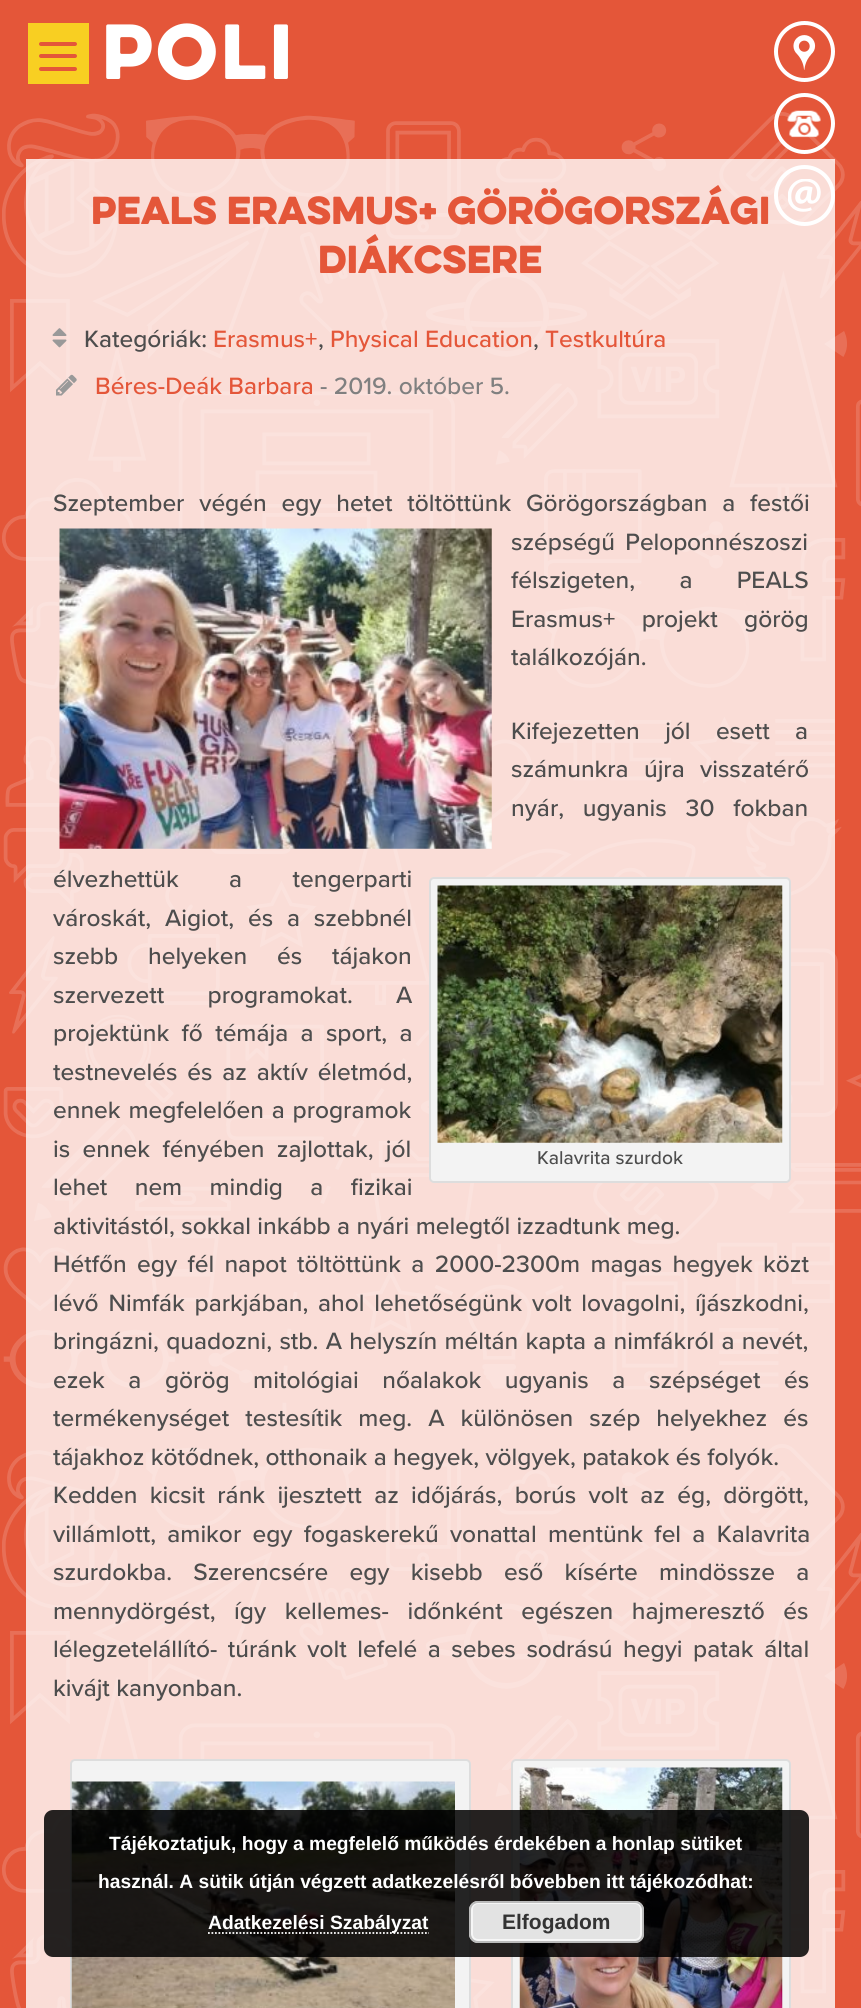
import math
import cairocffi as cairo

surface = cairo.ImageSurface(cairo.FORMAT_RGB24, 861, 2008)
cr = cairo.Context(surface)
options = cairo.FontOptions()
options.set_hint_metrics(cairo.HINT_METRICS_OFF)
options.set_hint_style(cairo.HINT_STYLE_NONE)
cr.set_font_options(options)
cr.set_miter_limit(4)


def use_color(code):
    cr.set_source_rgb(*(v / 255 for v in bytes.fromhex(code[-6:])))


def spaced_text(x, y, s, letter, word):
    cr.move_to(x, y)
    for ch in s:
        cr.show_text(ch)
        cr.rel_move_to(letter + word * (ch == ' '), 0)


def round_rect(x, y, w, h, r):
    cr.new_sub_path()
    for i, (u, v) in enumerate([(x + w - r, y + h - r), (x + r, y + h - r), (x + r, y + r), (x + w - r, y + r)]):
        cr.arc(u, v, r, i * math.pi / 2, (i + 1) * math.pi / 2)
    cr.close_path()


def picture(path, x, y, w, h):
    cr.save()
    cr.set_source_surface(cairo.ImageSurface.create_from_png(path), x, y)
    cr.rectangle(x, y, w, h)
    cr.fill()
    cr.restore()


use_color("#e45639")
cr.paint()
use_color("#faddd7")
cr.rectangle(26, 159, 809, 1849)
cr.fill()
use_color("#f8cf22")
cr.rectangle(28, 23, 61, 61)
cr.fill()
use_color("#e45639")
round_rect(39, 42, 38, 4, 2)
cr.fill()
round_rect(39, 54, 38, 4, 2)
cr.fill()
round_rect(39, 67, 38, 4, 2)
cr.fill()
cr.select_font_face("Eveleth")
cr.set_font_size(70)
use_color("#ffffff")
spaced_text(102, 79, "Poli", 3.5, 0)
picture("img1.png", 793, 35, 23, 35)
cr.arc(804.5, 51.5, 28.5, 0, 2 * math.pi)
cr.set_line_width(4)
cr.stroke()
picture("img10.png", 2, 112, 859, 1896)
picture("img2.png", 787, 110, 34, 28)
cr.arc(804.5, 123.5, 28.5, 0, 2 * math.pi)
cr.stroke()
picture("img3.png", 788, 179, 33, 33)
cr.arc(804.5, 195.5, 28.5, 0, 2 * math.pi)
cr.stroke()
cr.set_font_size(35)
use_color("#e45639")
cr.move_to(91, 224)
cr.show_text("PEALS Erasmus+ görögországi")
cr.move_to(318, 273)
cr.show_text("diákcsere")
picture("img4.png", 52, 328, 15, 20)
cr.select_font_face("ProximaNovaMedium")
cr.set_font_size(24.5)
use_color("#4d4d4d")
cr.move_to(84, 347)
cr.show_text("Kategóriák:")
use_color("#e45639")
cr.move_to(213, 347)
cr.show_text("Erasmus+")
use_color("#4d4d4d")
cr.move_to(318, 347)
cr.show_text(",")
use_color("#e45639")
cr.move_to(330, 347)
cr.show_text("Physical Education")
use_color("#4d4d4d")
cr.move_to(533, 347)
cr.show_text(",")
use_color("#e45639")
cr.move_to(545, 347)
cr.show_text("Testkultúra")
picture("img5.png", 56, 374, 21, 22)
cr.move_to(95, 394)
cr.show_text("Béres-Deák Barbara")
use_color("#808080")
cr.move_to(320, 394)
cr.show_text("- 2019. október 5.")
use_color("#4d4d4d")
spaced_text(53, 511, "Szeptember végén egy hetet töltöttünk Görögországban a festői", 0, 8.5)
picture("img6.png", 59, 528, 433, 321)
spaced_text(511, 550, "szépségű Pelop", 0, 4)
cr.move_to(687, 550)
cr.show_text("onnészoszi")
spaced_text(511, 588, "félszigeten, a PEALS", 0, 38)
spaced_text(511, 627, "Erasmus+ projekt görög", 0, 20)
cr.move_to(511, 665)
cr.show_text("találkozóján.")
spaced_text(511, 739, "Kifejezetten jól esett a", 0, 19)
spaced_text(511, 777, "számunkra újra visszatérő", 0, 9)
spaced_text(511, 816, "nyár, ugyanis 30 fokban", 0, 12.5)
spaced_text(53, 887, "élvezhettük a tengerparti", 0, 44)
spaced_text(53, 926, "városkát, Aigiot, és a szebbnél", 0, 7.5)
spaced_text(53, 964, "szebb helyeken és tájakon", 0, 23.5)
spaced_text(53, 1003, "szervezett programokat. A", 0, 37)
spaced_text(53, 1041, "projektünk fő témája a sport, a", 0, 6)
spaced_text(53, 1080, "testnevelés és az aktív életmód,", 0, 3.5)
spaced_text(53, 1118, "ennek megfelelően a programok", 0, 1.5)
spaced_text(53, 1157, "is ennek fényében zajlottak, jól", 0, 6)
spaced_text(53, 1195, "lehet nem mindig a fizikai", 0, 21)
cr.move_to(53, 1234)
cr.show_text("aktivitástól, sokkal inkább a nyári melegtől izzadtunk meg.")
spaced_text(53, 1272, "Hétfőn egy fél napot töltöttünk a 2000-2300m magas hegyek közt", 0, 4)
spaced_text(53, 1311, "lévő Nimfák parkjában, ahol lehetőségünk volt lovagolni, íjászkodni,", 0, 3.5)
spaced_text(53, 1349, "bringázni, quadozni, stb. A helyszín méltán kapta a nimfákról a nevét,", 0, 1)
spaced_text(53, 1388, "ezek a görög mitológiai nőalakok ugyanis a szépséget és", 0, 17.25)
spaced_text(53, 1426, "termékenységet testesítik meg. A különösen szép helyekhez és", 0, 9.75)
cr.move_to(53, 1465)
cr.show_text("tájakhoz kötődnek, otthonaik a hegyek, völgyek, patakok és folyók.")
spaced_text(53, 1503, "Kedden kicsit ránk ijesztett az időjárás, borús volt az ég, dörgött,", 0, 6)
spaced_text(53, 1542, "villámlott, amikor egy fogaskerekű vonattal mentünk fel a Kalavrita", 0, 5)
spaced_text(53, 1580, "szurdokba. Szerencsére egy kisebb eső kísérte mindössze a", 0, 15)
spaced_text(53, 1619, "mennydörgést, így kellemes- időnként egészen hajmeresztő és", 0, 12.25)
spaced_text(53, 1657, "lélegzetelállító- túránk volt lefelé a sebes sodrású hegyi patak által", 0, 4.25)
cr.move_to(53, 1696)
cr.show_text("kivájt kanyonban.")
use_color("#f3f3f3")
round_rect(430, 878, 360, 304, 4)
cr.fill_preserve()
use_color("#dddddd")
cr.set_line_width(2)
cr.stroke()
picture("img7.png", 437, 885, 346, 258)
cr.set_font_size(19.25)
use_color("#4d4d4d")
cr.move_to(537, 1164)
cr.show_text("Kalavrita szurdok")
use_color("#f3f3f3")
round_rect(71, 1760, 399, 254, 4)
cr.fill_preserve()
use_color("#dddddd")
cr.stroke()
picture("img8.png", 71, 1781, 384, 227)
use_color("#f3f3f3")
round_rect(512, 1760, 278, 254, 4)
cr.fill_preserve()
use_color("#dddddd")
cr.stroke()
picture("img9.png", 519, 1767, 264, 241)
cr.set_source_rgba(0, 0, 0, 0.85)
round_rect(44, 1810, 765, 147, 9)
cr.fill()
cr.select_font_face("Liberation Sans", cairo.FONT_SLANT_NORMAL, cairo.FONT_WEIGHT_BOLD)
use_color("#ffffff")
cr.move_to(109, 1850)
cr.show_text("Tájékoztatjuk, hogy a megfelelő működés érdekében a honlap sütiket")
cr.move_to(98, 1888)
cr.show_text("használ. A sütik útján végzett adatkezelésről bővebben itt tájékozódhat:")
cr.new_path()
cr.move_to(208, 1933)
cr.line_to(429, 1933)
cr.set_line_width(1.8)
cr.set_dash([1.75, 1.75])
cr.stroke()
cr.move_to(208, 1929)
cr.show_text("Adatkezelési Szabályzat")
use_color("#e3e3e3")
round_rect(469, 1901, 175, 42, 9)
cr.fill()
round_rect(472, 1903, 169, 37, 6)
use_color("#f6f6f6")
cr.set_line_width(2)
cr.set_dash([])
cr.stroke()
round_rect(470, 1902, 173, 40, 8)
use_color("#bbbbbb")
cr.stroke()
cr.set_font_size(21)
use_color("#333333")
cr.move_to(502, 1929)
cr.show_text("Elfogadom")
surface.write_to_png("result.png")
